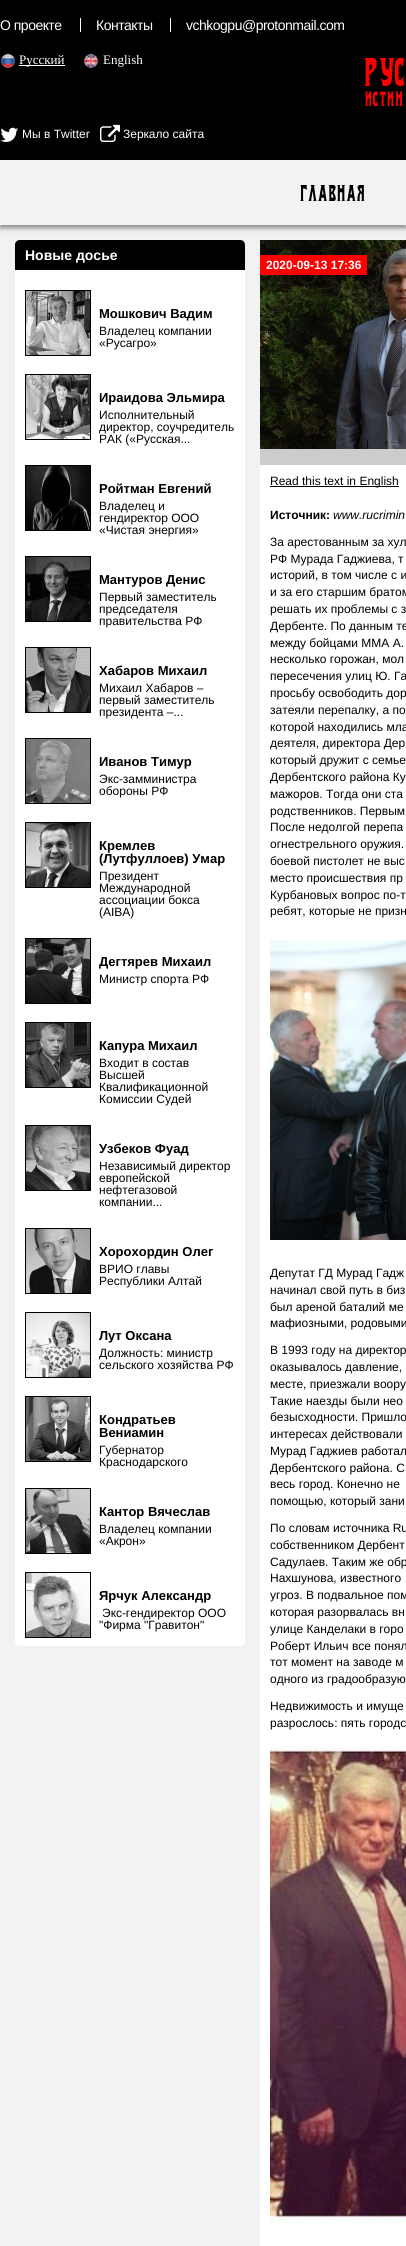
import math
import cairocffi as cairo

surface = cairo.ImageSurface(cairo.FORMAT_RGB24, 406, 2246)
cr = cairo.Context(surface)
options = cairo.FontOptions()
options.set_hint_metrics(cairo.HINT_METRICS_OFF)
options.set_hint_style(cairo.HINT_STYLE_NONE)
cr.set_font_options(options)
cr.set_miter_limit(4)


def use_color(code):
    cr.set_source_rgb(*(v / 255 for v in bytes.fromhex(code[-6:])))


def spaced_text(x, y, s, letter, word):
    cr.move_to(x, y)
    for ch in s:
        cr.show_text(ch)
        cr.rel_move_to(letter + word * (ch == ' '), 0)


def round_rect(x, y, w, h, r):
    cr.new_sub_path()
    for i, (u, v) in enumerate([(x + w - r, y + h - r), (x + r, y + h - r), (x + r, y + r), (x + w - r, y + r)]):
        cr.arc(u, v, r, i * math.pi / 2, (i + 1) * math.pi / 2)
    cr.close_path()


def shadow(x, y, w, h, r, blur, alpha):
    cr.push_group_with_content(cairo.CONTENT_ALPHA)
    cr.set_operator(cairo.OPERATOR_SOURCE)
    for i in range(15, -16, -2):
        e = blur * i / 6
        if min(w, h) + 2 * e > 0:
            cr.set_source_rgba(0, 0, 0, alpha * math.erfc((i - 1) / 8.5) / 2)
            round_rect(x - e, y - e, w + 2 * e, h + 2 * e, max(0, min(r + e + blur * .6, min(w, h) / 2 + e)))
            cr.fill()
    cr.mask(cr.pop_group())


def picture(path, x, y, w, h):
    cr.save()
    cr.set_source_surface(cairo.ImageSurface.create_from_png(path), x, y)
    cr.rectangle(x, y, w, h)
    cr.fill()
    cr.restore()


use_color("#f2f2f2")
cr.paint()
use_color("#000000")
cr.rectangle(0, 0, 406, 160)
cr.fill()
cr.select_font_face("Liberation Sans")
cr.set_font_size(14)
use_color("#ffffff")
spaced_text(0, 30, "О проекте", -0.5, 0)
cr.rectangle(80, 18, 1, 14)
cr.fill()
spaced_text(96, 30, "Контакты", -0.5, 0)
cr.rectangle(170, 18, 1, 14)
cr.fill()
spaced_text(186, 30, "vchkogpu@protonmail.com", -0.5, 0)
picture("img1.png", 0, 53, 16, 16)
cr.rectangle(19, 65, 46, 1)
cr.fill()
cr.select_font_face("Liberation Serif")
cr.set_font_size(13)
cr.move_to(19, 64)
cr.show_text("Русский")
picture("img2.png", 83, 53, 16, 16)
cr.move_to(103, 64)
cr.show_text("English")
cr.select_font_face("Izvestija")
cr.set_font_size(35)
use_color("#ff0000")
cr.move_to(362, 86)
cr.show_text("Рус")
cr.set_font_size(18)
cr.move_to(364, 106)
cr.show_text("ИСТИН")
picture("img3.png", 0, 127, 18, 15)
cr.select_font_face("Liberation Sans")
cr.set_font_size(12)
use_color("#ffffff")
cr.move_to(22, 138)
cr.show_text("Мы в Twitter")
picture("img4.png", 100, 124, 20, 18)
cr.move_to(123, 138)
cr.show_text("Зеркало сайта")
cr.save()
cr.set_fill_rule(cairo.FILL_RULE_EVEN_ODD)
cr.new_path()
cr.move_to(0, 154)
cr.line_to(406, 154)
cr.line_to(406, 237)
cr.line_to(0, 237)
cr.close_path()
cr.move_to(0, 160)
cr.line_to(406, 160)
cr.line_to(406, 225)
cr.line_to(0, 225)
cr.close_path()
cr.clip()
use_color("#000000")
shadow(0, 163, 406, 65, 0, 2.5, 0.45)
cr.restore()
cr.select_font_face("Izvestija")
cr.set_font_size(20)
use_color("#000000")
spaced_text(299, 201, "Главная", -0.5, 0)
use_color("#ffffff")
round_rect(15, 240, 230, 1406, 5)
cr.fill()
use_color("#000000")
cr.new_path()
cr.move_to(20, 240)
cr.line_to(240, 240)
cr.curve_to(243, 240, 245, 242, 245, 245)
cr.line_to(245, 270)
cr.line_to(15, 270)
cr.line_to(15, 245)
cr.curve_to(15, 242, 17, 240, 20, 240)
cr.close_path()
cr.fill()
cr.select_font_face("Liberation Sans", cairo.FONT_SLANT_NORMAL, cairo.FONT_WEIGHT_BOLD)
cr.set_font_size(14)
use_color("#ffffff")
cr.move_to(25, 260)
cr.show_text("Новые досье")
cr.rectangle(25.5, 290.5, 65, 65)
use_color("#000000")
cr.set_line_width(1)
cr.stroke()
picture("img5.png", 26, 291, 64, 64)
cr.set_font_size(13)
cr.move_to(99, 318)
cr.show_text("Мошкович Вадим")
cr.select_font_face("Liberation Sans")
cr.set_font_size(12)
cr.move_to(99, 335)
cr.show_text("Владелец компании")
cr.move_to(99, 347)
cr.show_text("«Русагро»")
cr.rectangle(25.5, 374.5, 65, 65)
cr.stroke()
picture("img6.png", 26, 375, 64, 64)
cr.select_font_face("Liberation Sans", cairo.FONT_SLANT_NORMAL, cairo.FONT_WEIGHT_BOLD)
cr.set_font_size(13)
cr.move_to(99, 402)
cr.show_text("Ираидова Эльмира")
cr.select_font_face("Liberation Sans")
cr.set_font_size(12)
cr.move_to(99, 419)
cr.show_text("Исполнительный")
cr.move_to(99, 431)
cr.show_text("директор, соучредитель")
cr.move_to(99, 443)
cr.show_text("РАК («Русская...")
cr.rectangle(25.5, 465.5, 65, 65)
cr.stroke()
picture("img7.png", 26, 466, 64, 64)
cr.select_font_face("Liberation Sans", cairo.FONT_SLANT_NORMAL, cairo.FONT_WEIGHT_BOLD)
cr.set_font_size(13)
cr.move_to(99, 493)
cr.show_text("Ройтман Евгений")
cr.select_font_face("Liberation Sans")
cr.set_font_size(12)
cr.move_to(99, 510)
cr.show_text("Владелец и")
cr.move_to(99, 522)
cr.show_text("гендиректор ООО")
cr.move_to(99, 534)
cr.show_text("«Чистая энергия»")
cr.rectangle(25.5, 556.5, 65, 65)
cr.stroke()
picture("img8.png", 26, 557, 64, 64)
cr.select_font_face("Liberation Sans", cairo.FONT_SLANT_NORMAL, cairo.FONT_WEIGHT_BOLD)
cr.set_font_size(13)
cr.move_to(99, 584)
cr.show_text("Мантуров Денис")
cr.select_font_face("Liberation Sans")
cr.set_font_size(12)
cr.move_to(99, 601)
cr.show_text("Первый заместитель")
cr.move_to(99, 613)
cr.show_text("председателя")
cr.move_to(99, 625)
cr.show_text("правительства РФ")
cr.rectangle(25.5, 647.5, 65, 65)
cr.stroke()
picture("img9.png", 26, 648, 64, 64)
cr.select_font_face("Liberation Sans", cairo.FONT_SLANT_NORMAL, cairo.FONT_WEIGHT_BOLD)
cr.set_font_size(13)
cr.move_to(99, 675)
cr.show_text("Хабаров Михаил")
cr.select_font_face("Liberation Sans")
cr.set_font_size(12)
cr.move_to(99, 692)
cr.show_text("Михаил Хабаров –")
cr.move_to(99, 704)
cr.show_text("первый заместитель")
cr.move_to(99, 716)
cr.show_text("президента –...")
cr.rectangle(25.5, 738.5, 65, 65)
cr.stroke()
picture("img10.png", 26, 739, 64, 64)
cr.select_font_face("Liberation Sans", cairo.FONT_SLANT_NORMAL, cairo.FONT_WEIGHT_BOLD)
cr.set_font_size(13)
cr.move_to(99, 766)
cr.show_text("Иванов Тимур")
cr.select_font_face("Liberation Sans")
cr.set_font_size(12)
cr.move_to(99, 783)
cr.show_text("Экс-замминистра")
cr.move_to(99, 795)
cr.show_text("обороны РФ")
cr.rectangle(25.5, 822.5, 65, 65)
cr.stroke()
picture("img11.png", 26, 823, 64, 64)
cr.select_font_face("Liberation Sans", cairo.FONT_SLANT_NORMAL, cairo.FONT_WEIGHT_BOLD)
cr.set_font_size(13)
cr.move_to(99, 850)
cr.show_text("Кремлев")
cr.move_to(99, 863)
cr.show_text("(Лутфуллоев) Умар")
cr.select_font_face("Liberation Sans")
cr.set_font_size(12)
cr.move_to(99, 880)
cr.show_text("Президент")
cr.move_to(99, 892)
cr.show_text("Международной")
cr.move_to(99, 904)
cr.show_text("ассоциации бокса")
cr.move_to(99, 916)
cr.show_text("(AIBA)")
cr.rectangle(25.5, 938.5, 65, 65)
cr.stroke()
picture("img12.png", 26, 939, 64, 64)
cr.select_font_face("Liberation Sans", cairo.FONT_SLANT_NORMAL, cairo.FONT_WEIGHT_BOLD)
cr.set_font_size(13)
cr.move_to(99, 966)
cr.show_text("Дегтярев Михаил")
cr.select_font_face("Liberation Sans")
cr.set_font_size(12)
cr.move_to(99, 983)
cr.show_text("Министр спорта РФ")
cr.rectangle(25.5, 1022.5, 65, 65)
cr.stroke()
picture("img13.png", 26, 1023, 64, 64)
cr.select_font_face("Liberation Sans", cairo.FONT_SLANT_NORMAL, cairo.FONT_WEIGHT_BOLD)
cr.set_font_size(13)
cr.move_to(99, 1050)
cr.show_text("Капура Михаил")
cr.select_font_face("Liberation Sans")
cr.set_font_size(12)
cr.move_to(99, 1067)
cr.show_text("Входит в состав")
cr.move_to(99, 1079)
cr.show_text("Высшей")
cr.move_to(99, 1091)
cr.show_text("Квалификационной")
cr.move_to(99, 1103)
cr.show_text("Комиссии Судей")
cr.rectangle(25.5, 1125.5, 65, 65)
cr.stroke()
picture("img14.png", 26, 1126, 64, 64)
cr.select_font_face("Liberation Sans", cairo.FONT_SLANT_NORMAL, cairo.FONT_WEIGHT_BOLD)
cr.set_font_size(13)
cr.move_to(99, 1153)
cr.show_text("Узбеков Фуад")
cr.select_font_face("Liberation Sans")
cr.set_font_size(12)
cr.move_to(99, 1170)
cr.show_text("Независимый директор")
cr.move_to(99, 1182)
cr.show_text("европейской")
cr.move_to(99, 1194)
cr.show_text("нефтегазовой")
cr.move_to(99, 1206)
cr.show_text("компании...")
cr.rectangle(25.5, 1228.5, 65, 65)
cr.stroke()
picture("img15.png", 26, 1229, 64, 64)
cr.select_font_face("Liberation Sans", cairo.FONT_SLANT_NORMAL, cairo.FONT_WEIGHT_BOLD)
cr.set_font_size(13)
cr.move_to(99, 1256)
cr.show_text("Хорохордин Олег")
cr.select_font_face("Liberation Sans")
cr.set_font_size(12)
cr.move_to(99, 1273)
cr.show_text("ВРИО главы")
cr.move_to(99, 1285)
cr.show_text("Республики Алтай")
cr.rectangle(25.5, 1312.5, 65, 65)
cr.stroke()
picture("img16.png", 26, 1313, 64, 64)
cr.select_font_face("Liberation Sans", cairo.FONT_SLANT_NORMAL, cairo.FONT_WEIGHT_BOLD)
cr.set_font_size(13)
cr.move_to(99, 1340)
cr.show_text("Лут Оксана")
cr.select_font_face("Liberation Sans")
cr.set_font_size(12)
cr.move_to(99, 1357)
cr.show_text("Должность: министр")
cr.move_to(99, 1369)
cr.show_text("сельского хозяйства РФ")
cr.rectangle(25.5, 1396.5, 65, 65)
cr.stroke()
picture("img17.png", 26, 1397, 64, 64)
cr.select_font_face("Liberation Sans", cairo.FONT_SLANT_NORMAL, cairo.FONT_WEIGHT_BOLD)
cr.set_font_size(13)
cr.move_to(99, 1424)
cr.show_text("Кондратьев")
cr.move_to(99, 1437)
cr.show_text("Вениамин")
cr.select_font_face("Liberation Sans")
cr.set_font_size(12)
cr.move_to(99, 1454)
cr.show_text("Губернатор")
cr.move_to(99, 1466)
cr.show_text("Краснодарского")
cr.rectangle(25.5, 1488.5, 65, 65)
cr.stroke()
picture("img18.png", 26, 1489, 64, 64)
cr.select_font_face("Liberation Sans", cairo.FONT_SLANT_NORMAL, cairo.FONT_WEIGHT_BOLD)
cr.set_font_size(13)
cr.move_to(99, 1516)
cr.show_text("Кантор Вячеслав")
cr.select_font_face("Liberation Sans")
cr.set_font_size(12)
cr.move_to(99, 1533)
cr.show_text("Владелец компании")
cr.move_to(99, 1545)
cr.show_text("«Акрон»")
cr.rectangle(25.5, 1572.5, 65, 65)
cr.stroke()
picture("img19.png", 26, 1573, 64, 64)
cr.select_font_face("Liberation Sans", cairo.FONT_SLANT_NORMAL, cairo.FONT_WEIGHT_BOLD)
cr.set_font_size(13)
cr.move_to(99, 1600)
cr.show_text("Ярчук Александр")
cr.select_font_face("Liberation Sans")
cr.set_font_size(12)
cr.move_to(102, 1617)
cr.show_text("Экс-гендиректор ООО")
cr.move_to(99, 1629)
cr.show_text("\"Фирма \"Гравитон\"")
use_color("#ffffff")
cr.rectangle(260, 465, 146, 1781)
cr.fill()
use_color("#cccccc")
cr.rectangle(260, 449, 146, 16)
cr.fill()
picture("img20.png", 260, 240, 146, 209)
use_color("#ff0000")
cr.rectangle(260, 255, 107, 20)
cr.fill()
cr.select_font_face("Liberation Sans", cairo.FONT_SLANT_NORMAL, cairo.FONT_WEIGHT_BOLD)
use_color("#ffffff")
cr.move_to(266, 269)
cr.show_text("2020-09-13 17:36")
use_color("#000000")
cr.rectangle(270, 486, 129, 1)
cr.fill()
cr.select_font_face("Liberation Sans")
cr.move_to(270, 485)
cr.show_text("Read this text in English")
cr.select_font_face("Liberation Sans", cairo.FONT_SLANT_NORMAL, cairo.FONT_WEIGHT_BOLD)
cr.move_to(270, 519)
cr.show_text("Источник:")
cr.select_font_face("Liberation Sans", cairo.FONT_SLANT_ITALIC)
cr.move_to(333, 519)
cr.show_text("www.rucrimin")
cr.select_font_face("Liberation Sans")
cr.move_to(270, 546)
cr.show_text("За арестованным за хул")
cr.move_to(270, 563)
cr.show_text("РФ Мурада Гаджиева, т")
cr.move_to(270, 579)
cr.show_text("историй, в том числе с и")
cr.move_to(270, 596)
cr.show_text("и за его старшим братом")
cr.move_to(270, 613)
cr.show_text("решать их проблемы с з")
cr.move_to(270, 630)
cr.show_text("Дербенте. По данным те")
cr.move_to(270, 647)
cr.show_text("между бойцами ММА А.")
cr.move_to(270, 663)
cr.show_text("несколько горожан, мол")
cr.move_to(270, 680)
cr.show_text("пересечения улиц Ю. Га")
cr.move_to(270, 697)
cr.show_text("просьбу освободить дор")
cr.move_to(270, 714)
cr.show_text("затеяли перепалку, а по")
cr.move_to(270, 731)
cr.show_text("которой находились мла")
cr.move_to(270, 747)
cr.show_text("деятеля, директора Дер")
cr.move_to(270, 764)
cr.show_text("который дружит с семье")
cr.move_to(270, 781)
cr.show_text("Дербентского района Ку")
cr.move_to(270, 798)
cr.show_text("мажоров. Тогда они ста")
cr.move_to(270, 815)
cr.show_text("родственников. Первым")
cr.move_to(270, 831)
cr.show_text("После недолгой перепа")
cr.move_to(270, 848)
cr.show_text("огнестрельного оружия.")
cr.move_to(270, 865)
cr.show_text("боевой пистолет не выс")
cr.move_to(270, 882)
cr.show_text("место происшествия пр")
cr.move_to(270, 899)
cr.show_text("Курбановых вопрос по-т")
cr.move_to(270, 915)
cr.show_text("ребят, которые не призн")
picture("img21.png", 270, 940, 136, 300)
cr.move_to(270, 1277)
cr.show_text("Депутат ГД Мурад Гадж")
cr.move_to(270, 1294)
cr.show_text("начинал свой путь в биз")
cr.move_to(270, 1311)
cr.show_text("был ареной баталий ме")
cr.move_to(270, 1327)
cr.show_text("мафиозными, родовыми")
cr.move_to(270, 1354)
cr.show_text("В 1993 году на директор")
cr.move_to(270, 1371)
cr.show_text("оказывалось давление,")
cr.move_to(270, 1388)
cr.show_text("месте, приезжали воору")
cr.move_to(270, 1405)
cr.show_text("Такие наезды были нео")
cr.move_to(270, 1421)
cr.show_text("безысходности. Пришло")
cr.move_to(270, 1438)
cr.show_text("интересах действовали")
cr.move_to(270, 1455)
cr.show_text("Мурад Гаджиев работал")
cr.move_to(270, 1472)
cr.show_text("Дербентского района. С")
cr.move_to(270, 1488)
cr.show_text("весь город. Конечно не")
cr.move_to(270, 1505)
cr.show_text("помощью, который зани")
cr.move_to(270, 1532)
cr.show_text("По словам источника Ru")
cr.move_to(270, 1549)
cr.show_text("собственником Дербент")
cr.move_to(270, 1566)
cr.show_text("Садулаев. Таким же обр")
cr.move_to(270, 1582)
cr.show_text("Нахшунова, известного")
cr.move_to(270, 1599)
cr.show_text("угроз. В подвальное пом")
cr.move_to(270, 1616)
cr.show_text("которая разорвалась вн")
cr.move_to(270, 1633)
cr.show_text("улице Канделаки в горо")
cr.move_to(270, 1650)
cr.show_text("Роберт Ильич все понял")
cr.move_to(270, 1666)
cr.show_text("тот момент на заводе м")
cr.move_to(270, 1683)
cr.show_text("одного из градообразую")
cr.move_to(270, 1710)
cr.show_text("Недвижимость и имуще")
cr.move_to(270, 1727)
cr.show_text("разрослось: пять городс")
picture("img22.png", 270, 1747, 136, 476)
surface.write_to_png("result.png")
